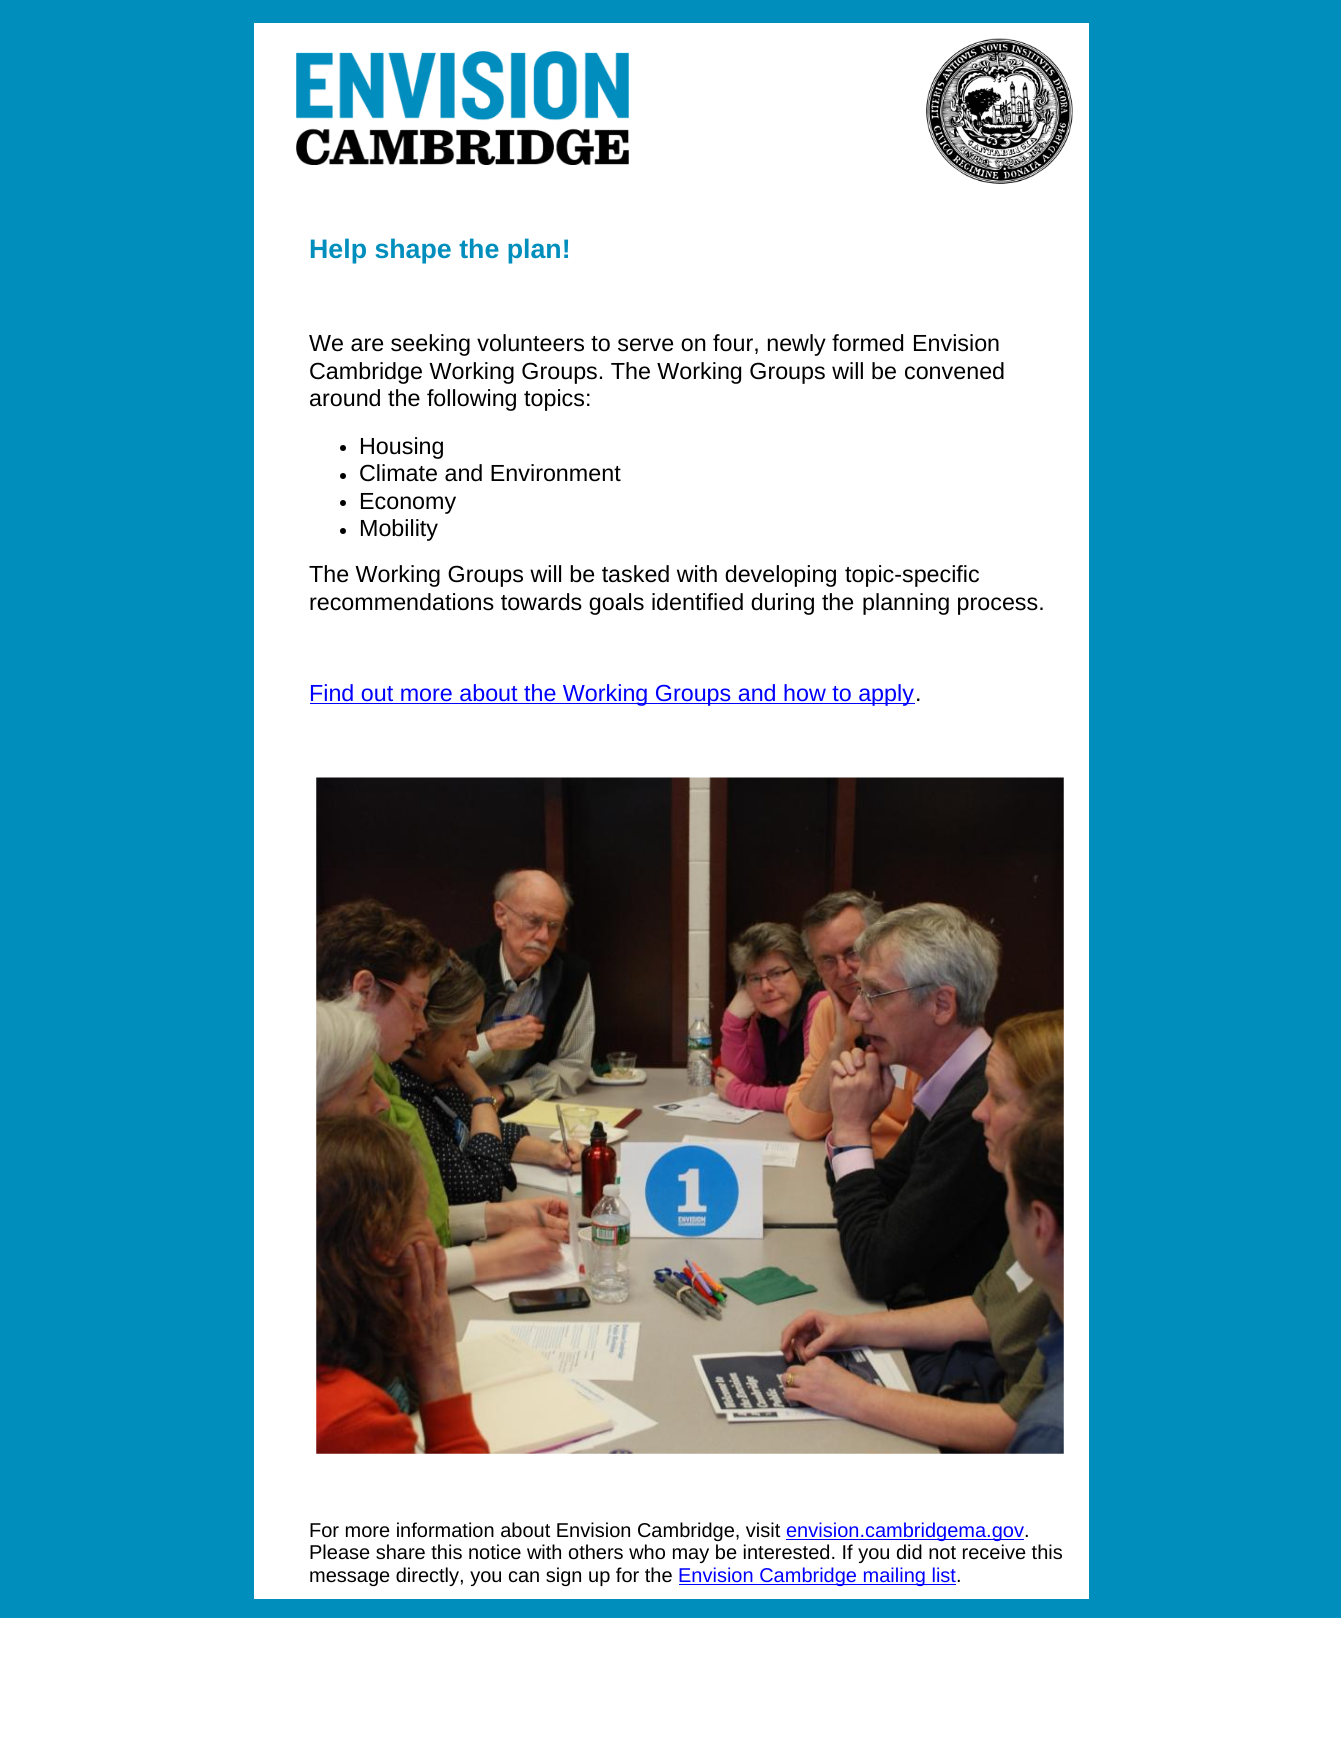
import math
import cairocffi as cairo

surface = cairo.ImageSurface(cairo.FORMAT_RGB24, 1341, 1754)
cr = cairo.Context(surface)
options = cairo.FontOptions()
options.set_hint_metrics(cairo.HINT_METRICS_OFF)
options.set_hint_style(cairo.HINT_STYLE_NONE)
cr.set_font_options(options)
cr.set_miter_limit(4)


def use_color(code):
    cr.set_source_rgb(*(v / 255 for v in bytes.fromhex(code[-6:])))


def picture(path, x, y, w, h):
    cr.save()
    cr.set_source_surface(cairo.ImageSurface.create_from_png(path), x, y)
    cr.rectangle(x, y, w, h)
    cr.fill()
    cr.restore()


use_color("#ffffff")
cr.paint()
use_color("#008ebd")
cr.rectangle(0, 0, 1341, 1618)
cr.fill()
use_color("#ffffff")
cr.rectangle(254, 23, 835, 1576)
cr.fill()
picture("img1.png", 296, 51, 333, 114)
picture("img2.png", 926, 38, 147, 146)
cr.select_font_face("Liberation Sans", cairo.FONT_SLANT_NORMAL, cairo.FONT_WEIGHT_BOLD)
cr.set_font_size(26.75)
use_color("#008ebd")
cr.move_to(309, 258)
cr.show_text("Help shape the plan!")
cr.select_font_face("Liberation Sans")
cr.set_font_size(23.3)
use_color("#000000")
cr.move_to(309, 351)
cr.show_text("We are seeking volunteers to serve on four, newly formed")
cr.move_to(912, 351)
cr.show_text("Envision")
cr.move_to(309, 379)
cr.show_text("Cambridge Working Groups. The Working Groups will be")
cr.move_to(904, 379)
cr.show_text("convened")
cr.move_to(309, 406)
cr.show_text("around the following topics:")
cr.new_path()
cr.arc(343, 448, 3, 0, 2 * math.pi)
cr.fill()
cr.move_to(359, 454)
cr.show_text("Housing")
cr.new_path()
cr.arc(343, 476, 3, 0, 2 * math.pi)
cr.fill()
cr.move_to(359, 481)
cr.show_text("Climate and Environment")
cr.new_path()
cr.arc(343, 503, 3, 0, 2 * math.pi)
cr.fill()
cr.move_to(359, 509)
cr.show_text("Economy")
cr.new_path()
cr.arc(343, 531, 3, 0, 2 * math.pi)
cr.fill()
cr.move_to(359, 536)
cr.show_text("Mobility")
cr.move_to(309, 582)
cr.show_text("The Working Groups will be tasked with developing")
cr.move_to(845, 582)
cr.show_text("topic-specific")
cr.move_to(309, 610)
cr.show_text("recommendations towards goals identified during the")
cr.move_to(862, 610)
cr.show_text("planning process.")
use_color("#0000ff")
cr.rectangle(310, 703, 605, 1)
cr.fill()
cr.move_to(309, 701)
cr.show_text("Find out more about the Working Groups and how to apply")
use_color("#000000")
cr.move_to(915, 701)
cr.show_text(".")
picture("img3.png", 316, 777, 748, 677)
cr.set_font_size(20)
cr.move_to(309, 1537)
cr.show_text("For more information about Envision Cambridge, visit")
use_color("#0000ff")
cr.rectangle(786, 1539, 238, 1)
cr.fill()
cr.move_to(786, 1537)
cr.show_text("envision.cambridgema.gov")
use_color("#000000")
cr.move_to(1024, 1537)
cr.show_text(".")
cr.move_to(309, 1559)
cr.show_text("Please share this notice with others who may be interested. If you did not receive this")
cr.move_to(309, 1582)
cr.show_text("message directly, you can sign up for the")
use_color("#0000ff")
cr.rectangle(679, 1584, 277, 1)
cr.fill()
cr.move_to(678, 1582)
cr.show_text("Envision Cambridge mailing list")
use_color("#000000")
cr.move_to(956, 1582)
cr.show_text(".")
surface.write_to_png("result.png")
